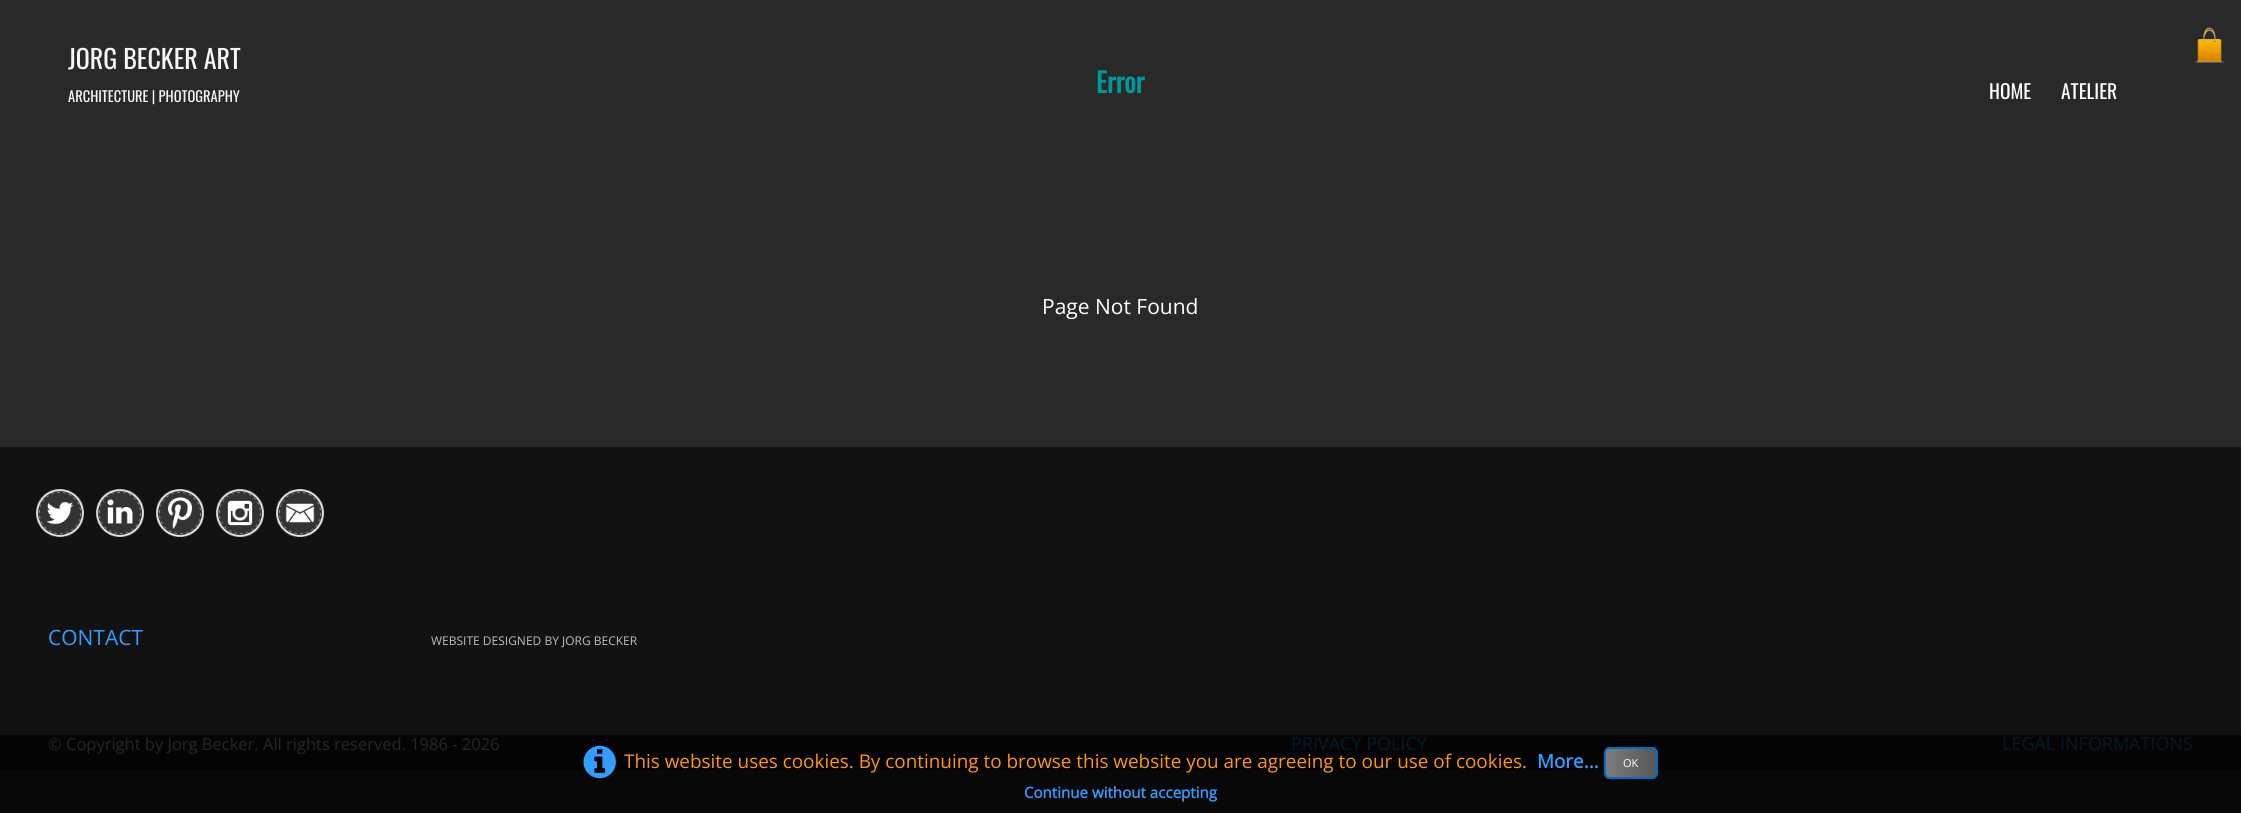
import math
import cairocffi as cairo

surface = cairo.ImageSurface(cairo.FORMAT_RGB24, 2241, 813)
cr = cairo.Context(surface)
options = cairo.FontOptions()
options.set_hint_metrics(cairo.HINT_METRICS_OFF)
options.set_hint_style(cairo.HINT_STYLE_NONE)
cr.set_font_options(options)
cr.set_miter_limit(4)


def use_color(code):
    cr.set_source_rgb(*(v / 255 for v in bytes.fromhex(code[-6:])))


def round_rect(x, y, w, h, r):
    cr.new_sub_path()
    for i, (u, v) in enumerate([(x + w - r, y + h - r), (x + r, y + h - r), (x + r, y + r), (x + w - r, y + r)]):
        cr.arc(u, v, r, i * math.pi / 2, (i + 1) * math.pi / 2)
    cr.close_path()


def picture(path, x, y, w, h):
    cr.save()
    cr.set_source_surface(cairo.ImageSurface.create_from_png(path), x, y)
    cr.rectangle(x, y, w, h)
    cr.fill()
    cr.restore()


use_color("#080808")
cr.paint()
use_color("#292929")
cr.rectangle(0, 0, 2241, 447)
cr.fill()
cr.select_font_face("Oswald")
cr.set_font_size(26)
use_color("#f7f7f7")
cr.move_to(68, 69)
cr.show_text("JORG BECKER ART")
cr.set_font_size(14.5)
cr.move_to(68, 102)
cr.show_text("ARCHITECTURE | PHOTOGRAPHY")
picture("img1.png", 2195, 27, 29, 36)
cr.set_font_size(19.5)
use_color("#ffffff")
cr.move_to(1989, 99)
cr.show_text("HOME")
cr.move_to(2061, 99)
cr.show_text("ATELIER")
cr.select_font_face("Oswald", cairo.FONT_SLANT_NORMAL, cairo.FONT_WEIGHT_BOLD)
cr.set_font_size(27)
use_color("#009999")
cr.move_to(1096, 93)
cr.show_text("Error")
cr.select_font_face("Open Sans")
cr.set_font_size(21)
use_color("#ffffff")
cr.move_to(1042, 314)
cr.show_text("Page Not Found")
use_color("#121212")
cr.rectangle(0, 447, 2241, 288)
cr.fill()
use_color("#040404")
cr.rectangle(0, 735, 2241, 35)
cr.fill()
picture("img2.png", 36, 489, 48, 48)
picture("img3.png", 96, 489, 48, 48)
picture("img4.png", 156, 489, 48, 48)
picture("img5.png", 216, 489, 48, 48)
picture("img6.png", 276, 489, 48, 48)
use_color("#339cff")
cr.move_to(48, 645)
cr.show_text("CONTACT")
cr.set_font_size(12)
use_color("#bfbfbf")
cr.move_to(431, 645)
cr.show_text("WEBSITE DESIGNED BY JORG BECKER")
cr.set_font_size(16.5)
use_color("#262626")
cr.move_to(48, 750)
cr.show_text("© Copyright by Jorg Becker. All rights reserved. 1986 - 2026")
cr.set_font_size(18)
use_color("#001b29")
cr.move_to(1291, 750)
cr.show_text("PRIVACY POLICY")
cr.move_to(2002, 750)
cr.show_text("LEGAL INFORMATIONS")
picture("img7.png", 583, 745, 33, 34)
cr.set_font_size(18.9)
use_color("#ff9514")
cr.move_to(624, 768)
cr.show_text("This website uses cookies. By continuing to browse this website you are agreeing to our use of cookies.")
cr.select_font_face("Open Sans", cairo.FONT_SLANT_NORMAL, cairo.FONT_WEIGHT_BOLD)
use_color("#339cff")
cr.move_to(1537, 768)
cr.show_text("More...")
cr.save()
round_rect(1604, 747, 54, 32, 6)
cr.clip()
gradient = cairo.LinearGradient(1605, 763, 1656, 763)
gradient.add_color_stop_rgba(0, 0.49, 0.49, 0.49, 1)
gradient.add_color_stop_rgba(1, 0.341, 0.341, 0.341, 1)
cr.set_source(gradient)
cr.rectangle(1605, 747, 51, 32)
cr.fill()
cr.restore()
round_rect(1605, 748, 52, 30, 5)
use_color("#006dcc")
cr.stroke()
cr.select_font_face("Open Sans")
cr.set_font_size(11)
use_color("#ffffff")
cr.move_to(1623, 767)
cr.show_text("OK")
cr.select_font_face("Open Sans", cairo.FONT_SLANT_NORMAL, cairo.FONT_WEIGHT_BOLD)
cr.set_font_size(15.1)
use_color("#339cff")
cr.move_to(1024, 798)
cr.show_text("Continue without accepting")
surface.write_to_png("result.png")
